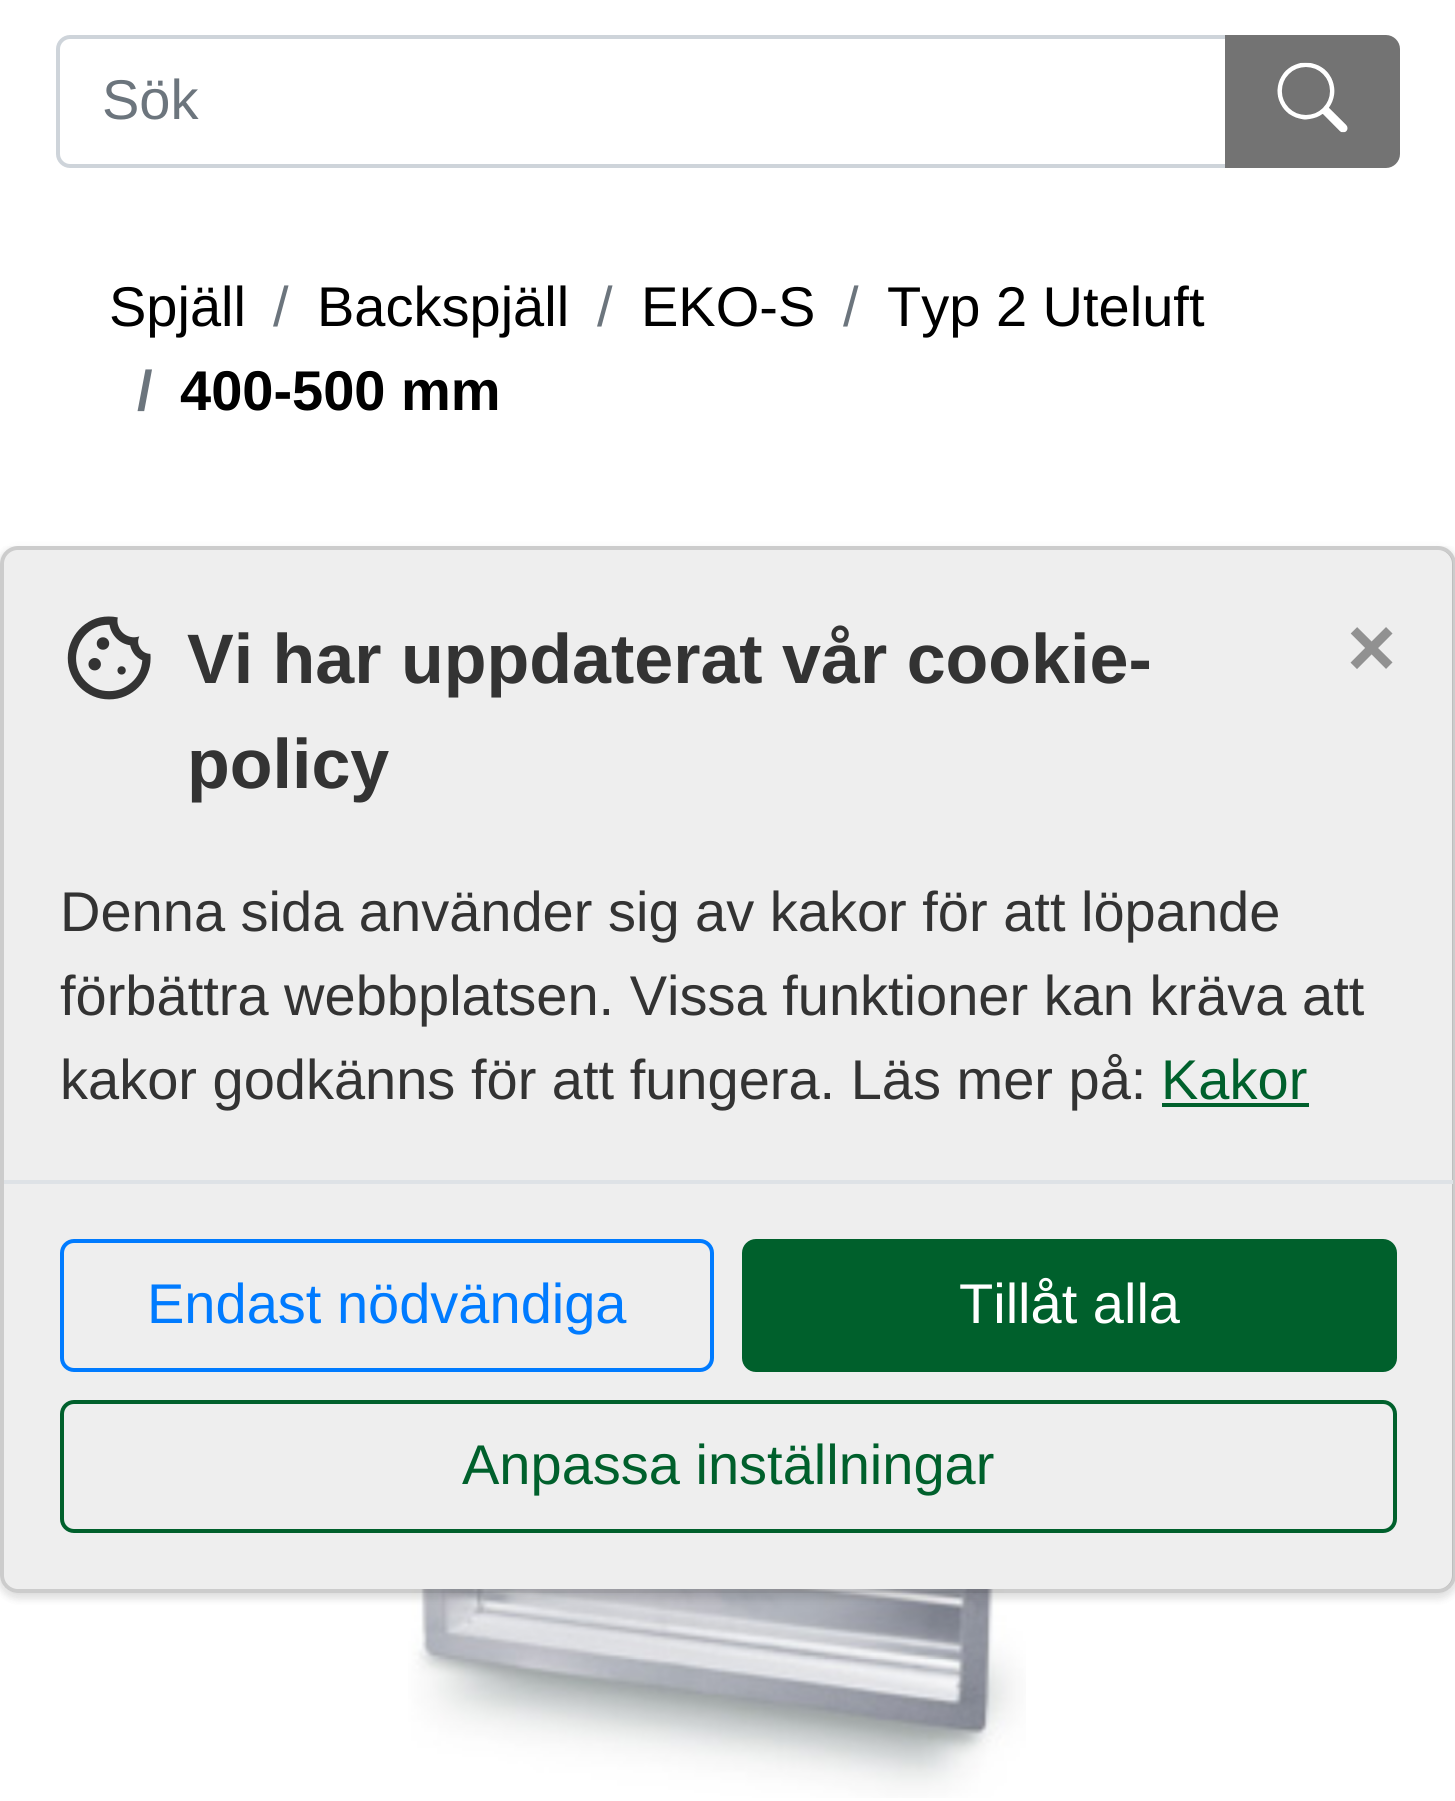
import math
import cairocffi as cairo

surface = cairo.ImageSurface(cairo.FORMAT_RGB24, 1455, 1801)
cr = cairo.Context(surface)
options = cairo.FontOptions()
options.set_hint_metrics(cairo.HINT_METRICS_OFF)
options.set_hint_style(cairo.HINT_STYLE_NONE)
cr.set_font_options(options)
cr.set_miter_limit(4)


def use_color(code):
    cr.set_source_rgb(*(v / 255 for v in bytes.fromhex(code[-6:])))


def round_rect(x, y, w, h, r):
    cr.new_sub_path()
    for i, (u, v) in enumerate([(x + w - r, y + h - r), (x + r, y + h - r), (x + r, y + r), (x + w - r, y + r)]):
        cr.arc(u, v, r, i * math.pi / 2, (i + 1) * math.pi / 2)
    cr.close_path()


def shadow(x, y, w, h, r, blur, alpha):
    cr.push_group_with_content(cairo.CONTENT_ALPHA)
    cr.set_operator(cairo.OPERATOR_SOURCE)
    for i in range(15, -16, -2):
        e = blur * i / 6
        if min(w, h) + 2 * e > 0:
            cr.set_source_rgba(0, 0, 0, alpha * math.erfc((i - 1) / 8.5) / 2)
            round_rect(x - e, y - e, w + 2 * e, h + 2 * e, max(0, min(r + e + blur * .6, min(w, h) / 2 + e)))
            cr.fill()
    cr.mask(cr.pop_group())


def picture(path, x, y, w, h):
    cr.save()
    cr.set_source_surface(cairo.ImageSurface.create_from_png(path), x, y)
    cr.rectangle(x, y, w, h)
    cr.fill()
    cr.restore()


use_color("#ffffff")
cr.paint()
cr.new_path()
cr.move_to(70, 37)
cr.line_to(1227, 37)
cr.line_to(1227, 166)
cr.line_to(70, 166)
cr.curve_to(63.5, 166, 58, 160.5, 58, 154)
cr.line_to(58, 49)
cr.curve_to(58, 42.5, 63.5, 37, 70, 37)
cr.close_path()
use_color("#ced4da")
cr.set_line_width(4)
cr.stroke()
cr.select_font_face("Liberation Sans")
cr.set_font_size(56)
use_color("#6c757d")
cr.move_to(102, 119)
cr.show_text("Sök")
use_color("#737373")
cr.new_path()
cr.move_to(1227, 37)
cr.line_to(1386, 37)
cr.curve_to(1392.5, 37, 1398, 42.5, 1398, 49)
cr.line_to(1398, 154)
cr.curve_to(1398, 160.5, 1392.5, 166, 1386, 166)
cr.line_to(1227, 166)
cr.close_path()
cr.fill_preserve()
cr.stroke()
picture("img1.png", 1277, 62, 71, 71)
use_color("#000000")
cr.move_to(109, 326)
cr.show_text("Spjäll")
use_color("#6c757d")
cr.move_to(273, 326)
cr.show_text("/")
use_color("#000000")
cr.move_to(317, 326)
cr.show_text("Backspjäll")
use_color("#6c757d")
cr.move_to(597, 326)
cr.show_text("/")
use_color("#000000")
cr.move_to(641, 326)
cr.show_text("EKO-S")
use_color("#6c757d")
cr.move_to(843, 326)
cr.show_text("/")
use_color("#000000")
cr.move_to(887, 326)
cr.show_text("Typ 2 Uteluft")
cr.select_font_face("Liberation Sans", cairo.FONT_SLANT_NORMAL, cairo.FONT_WEIGHT_BOLD)
use_color("#6c757d")
cr.move_to(137, 410)
cr.show_text("/")
use_color("#000000")
cr.move_to(180, 410)
cr.show_text("400-500 mm")
picture("img2.png", 408, 1589, 618, 209)
cr.save()
cr.rectangle(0, 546, 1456, 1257)
cr.clip()
cr.set_fill_rule(cairo.FILL_RULE_EVEN_ODD)
cr.new_path()
cr.move_to(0, 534)
cr.line_to(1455, 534)
cr.line_to(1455, 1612)
cr.line_to(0, 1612)
cr.close_path()
cr.move_to(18, 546)
cr.line_to(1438, 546)
cr.curve_to(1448, 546, 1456, 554, 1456, 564)
cr.line_to(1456, 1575)
cr.curve_to(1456, 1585, 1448, 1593, 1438, 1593)
cr.line_to(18, 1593)
cr.curve_to(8, 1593, 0, 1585, 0, 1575)
cr.line_to(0, 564)
cr.curve_to(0, 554, 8, 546, 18, 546)
cr.close_path()
cr.clip()
use_color("#000000")
shadow(-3, 546, 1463, 1054, 21, 3.5, 0.06)
cr.restore()
cr.save()
cr.set_fill_rule(cairo.FILL_RULE_EVEN_ODD)
cr.new_path()
cr.move_to(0, 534)
cr.line_to(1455, 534)
cr.line_to(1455, 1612)
cr.line_to(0, 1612)
cr.close_path()
cr.move_to(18, 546)
cr.line_to(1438, 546)
cr.curve_to(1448, 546, 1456, 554, 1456, 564)
cr.line_to(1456, 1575)
cr.curve_to(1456, 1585, 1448, 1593, 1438, 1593)
cr.line_to(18, 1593)
cr.curve_to(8, 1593, 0, 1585, 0, 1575)
cr.line_to(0, 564)
cr.curve_to(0, 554, 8, 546, 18, 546)
cr.close_path()
cr.clip()
use_color("#000000")
shadow(0, 550, 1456, 1046, 18, 5, 0.1)
cr.restore()
use_color("#eeeeee")
round_rect(4, 550, 1449, 1039, 14)
cr.fill()
round_rect(2, 548, 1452, 1043, 16)
cr.set_source_rgba(0, 0, 0, 0.2)
cr.stroke()
picture("img3.png", 67, 616, 84, 84)
cr.set_font_size(70)
use_color("#333333")
cr.move_to(187, 683)
cr.show_text("Vi har uppdaterat vår cookie-")
cr.move_to(187, 788)
cr.show_text("policy")
cr.set_font_size(84)
use_color("#919191")
cr.move_to(1347, 676)
cr.show_text("×")
cr.select_font_face("Liberation Sans")
cr.set_font_size(56)
use_color("#333333")
cr.move_to(60, 931)
cr.show_text("Denna sida använder sig av kakor för att löpande")
cr.move_to(60, 1015)
cr.show_text("förbättra webbplatsen. Vissa funktioner kan kräva att")
cr.move_to(60, 1099)
cr.show_text("kakor godkänns för att fungera. Läs mer på:")
use_color("#00602c")
cr.move_to(1161, 1099)
cr.show_text("Kakor")
cr.rectangle(1162, 1103, 147, 4)
cr.fill()
use_color("#dee2e6")
cr.rectangle(4, 1180, 1449, 4)
cr.fill()
round_rect(62, 1241, 650, 129, 12)
use_color("#007bff")
cr.stroke()
cr.move_to(147, 1323)
cr.show_text("Endast nödvändiga")
use_color("#00602c")
round_rect(744, 1241, 651, 129, 12)
cr.fill_preserve()
cr.stroke()
use_color("#ffffff")
cr.move_to(959, 1323)
cr.show_text("Tillåt alla")
round_rect(62, 1402, 1333, 129, 12)
use_color("#00602c")
cr.stroke()
cr.move_to(462, 1484)
cr.show_text("Anpassa inställningar")
surface.write_to_png("result.png")
